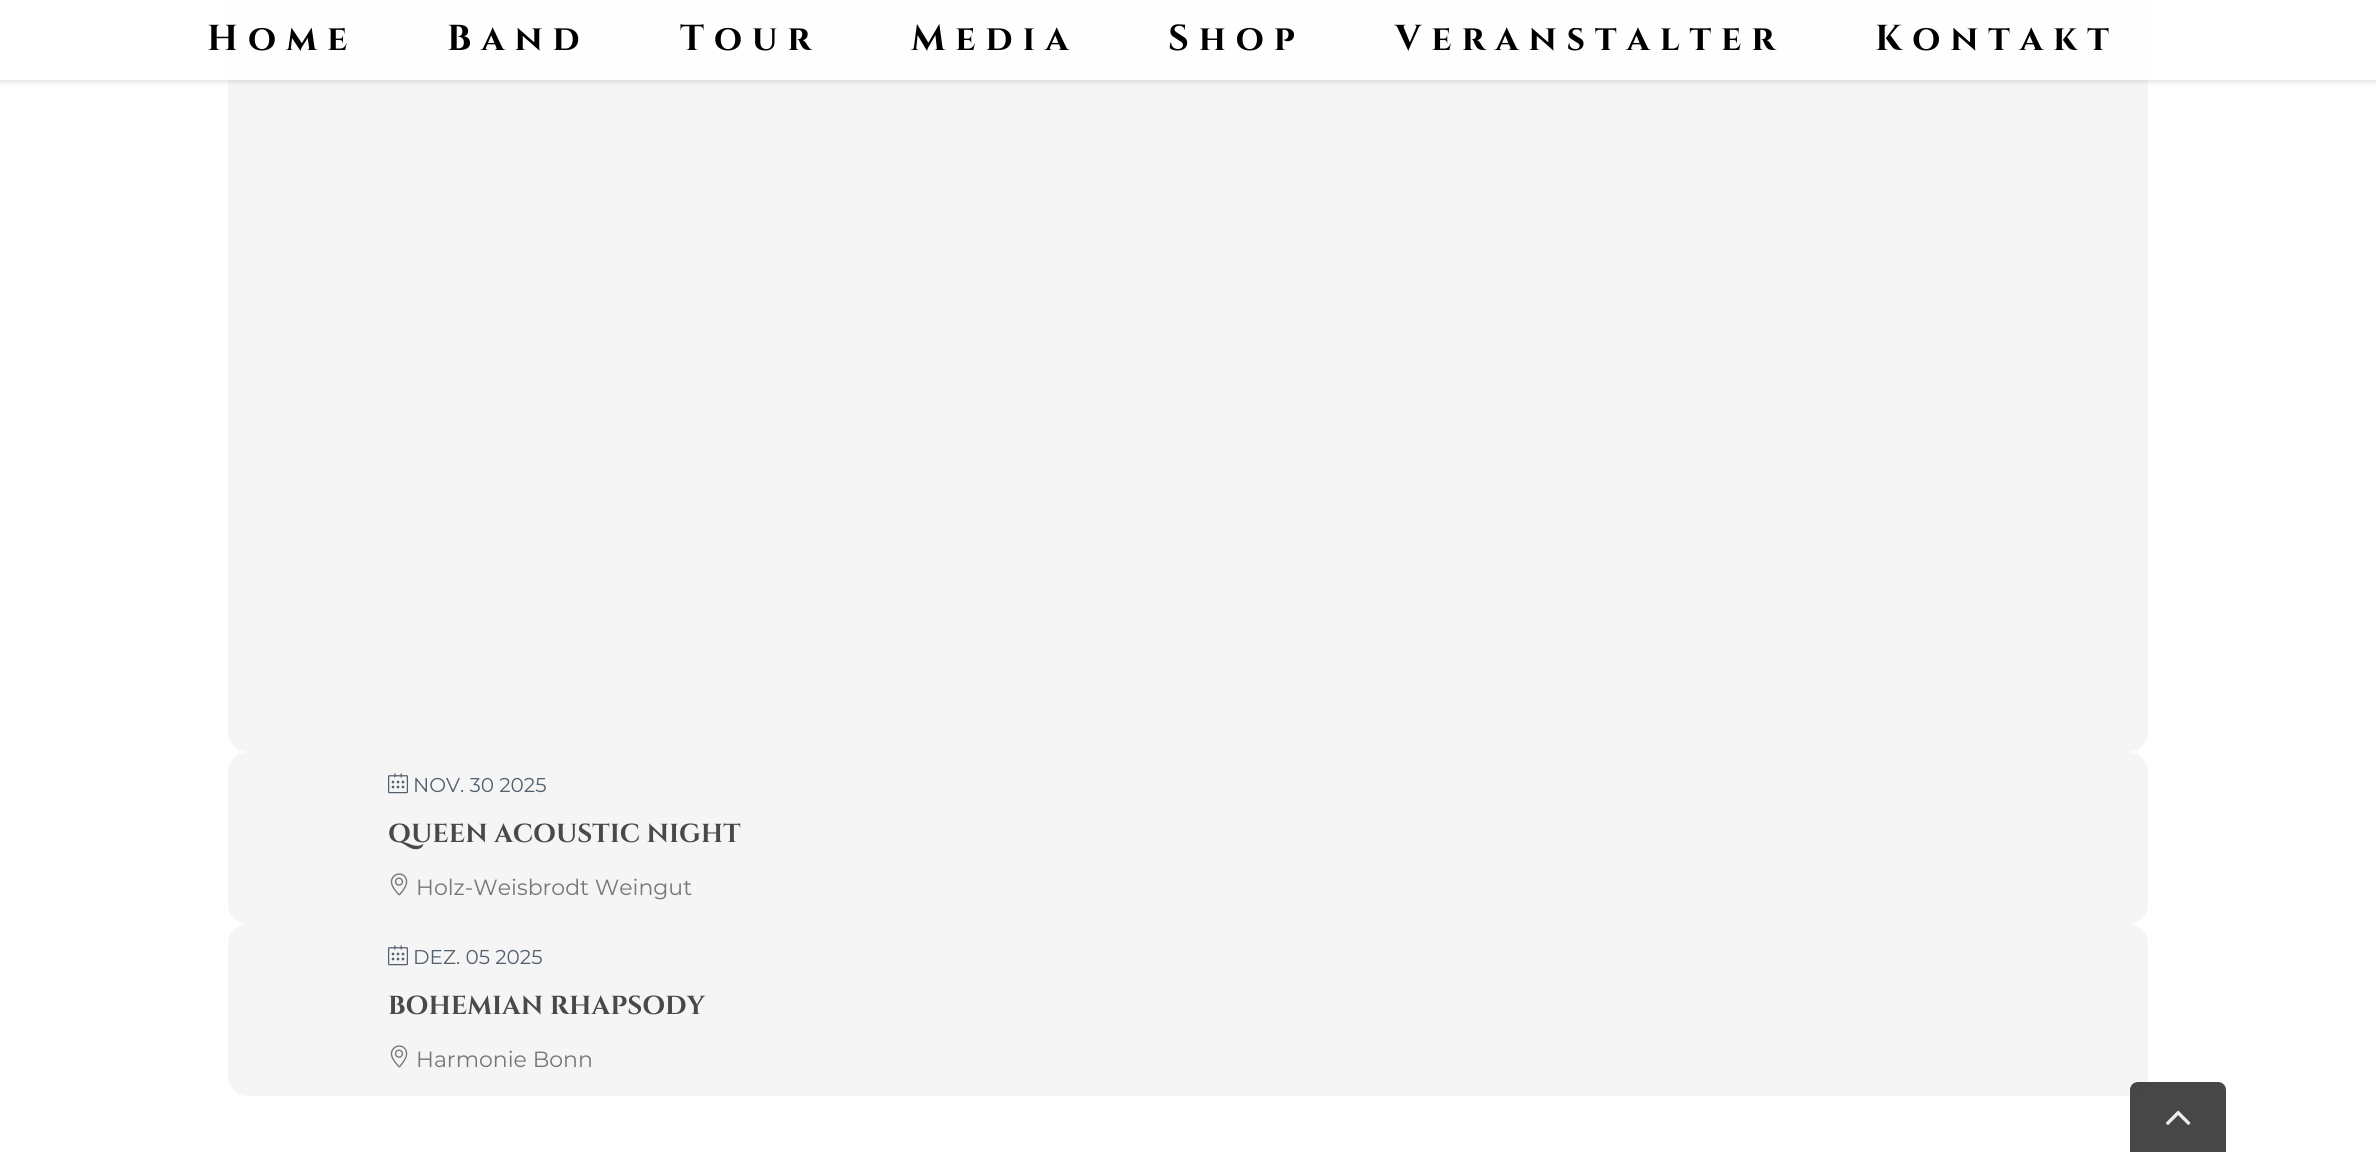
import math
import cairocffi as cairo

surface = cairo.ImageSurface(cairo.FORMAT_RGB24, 2376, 1152)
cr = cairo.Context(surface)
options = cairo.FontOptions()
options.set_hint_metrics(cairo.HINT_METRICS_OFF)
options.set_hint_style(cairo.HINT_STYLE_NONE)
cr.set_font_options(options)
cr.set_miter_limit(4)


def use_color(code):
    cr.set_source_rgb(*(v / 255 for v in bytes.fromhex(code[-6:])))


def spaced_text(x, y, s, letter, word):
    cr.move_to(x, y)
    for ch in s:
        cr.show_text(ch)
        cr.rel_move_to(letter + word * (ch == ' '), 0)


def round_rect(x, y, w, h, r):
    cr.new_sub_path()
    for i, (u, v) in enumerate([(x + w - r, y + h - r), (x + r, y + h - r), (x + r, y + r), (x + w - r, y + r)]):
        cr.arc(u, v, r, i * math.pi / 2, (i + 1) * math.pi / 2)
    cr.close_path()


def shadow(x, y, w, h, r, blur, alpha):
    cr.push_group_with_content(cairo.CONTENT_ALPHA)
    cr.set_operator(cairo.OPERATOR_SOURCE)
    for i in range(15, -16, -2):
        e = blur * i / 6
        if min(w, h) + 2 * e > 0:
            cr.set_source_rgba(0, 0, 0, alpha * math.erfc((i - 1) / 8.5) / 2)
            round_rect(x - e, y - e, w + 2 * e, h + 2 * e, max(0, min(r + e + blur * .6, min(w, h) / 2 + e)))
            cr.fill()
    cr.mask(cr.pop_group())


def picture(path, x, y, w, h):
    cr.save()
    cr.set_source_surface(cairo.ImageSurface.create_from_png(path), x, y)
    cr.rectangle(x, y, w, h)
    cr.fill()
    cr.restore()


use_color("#ffffff")
cr.paint()
use_color("#f5f5f5")
round_rect(228, -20, 1920, 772, 20)
cr.fill()
use_color("#fefefe")
cr.rectangle(228, 0, 1920, 80)
cr.fill()
cr.save()
cr.rectangle(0, 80, 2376, 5)
cr.clip()
use_color("#000000")
shadow(0, 2, 2376, 80, 0, 3, 0.12)
cr.restore()
cr.select_font_face("Cinzel", cairo.FONT_SLANT_NORMAL, cairo.FONT_WEIGHT_BOLD)
cr.set_font_size(36)
use_color("#000000")
spaced_text(207, 50, "Home", 10, 0)
spaced_text(447, 50, "Band", 10, 0)
spaced_text(680, 50, "Tour", 10, 0)
spaced_text(911, 50, "Media", 10, 0)
spaced_text(1168, 50, "Shop", 10, 0)
spaced_text(1395, 50, "Veranstalter", 10, 0)
spaced_text(1875, 50, "Kontakt", 10, 0)
use_color("#f5f5f5")
round_rect(228, 752, 1920, 172, 20)
cr.fill()
picture("img1.png", 388, 773, 20, 21)
cr.select_font_face("Montserrat")
cr.set_font_size(20)
use_color("#55606e")
cr.move_to(413, 792)
cr.show_text("NOV. 30 2025")
cr.select_font_face("Cinzel", cairo.FONT_SLANT_NORMAL, cairo.FONT_WEIGHT_BOLD)
cr.set_font_size(26)
use_color("#494949")
cr.move_to(388, 842)
cr.show_text("QUEEN ACOUSTIC NIGHT")
picture("img2.png", 390, 873, 18, 23)
cr.select_font_face("Montserrat")
cr.set_font_size(22)
use_color("#777777")
cr.move_to(416, 895)
cr.show_text("Holz-Weisbrodt Weingut")
use_color("#f5f5f5")
round_rect(228, 924, 1920, 172, 20)
cr.fill()
picture("img1.png", 388, 945, 20, 21)
cr.set_font_size(20)
use_color("#55606e")
cr.move_to(413, 964)
cr.show_text("DEZ. 05 2025")
cr.select_font_face("Cinzel", cairo.FONT_SLANT_NORMAL, cairo.FONT_WEIGHT_BOLD)
cr.set_font_size(26)
use_color("#494949")
cr.move_to(388, 1014)
cr.show_text("BOHEMIAN RHAPSODY")
picture("img2.png", 390, 1045, 18, 23)
cr.select_font_face("Montserrat")
cr.set_font_size(22)
use_color("#777777")
cr.move_to(416, 1067)
cr.show_text("Harmonie Bonn")
cr.set_source_rgba(0.2, 0.2, 0.2, 0.9)
cr.new_path()
cr.move_to(2138, 1082)
cr.line_to(2218, 1082)
cr.curve_to(2222.5, 1082, 2226, 1085.5, 2226, 1090)
cr.line_to(2226, 1152)
cr.line_to(2130, 1152)
cr.line_to(2130, 1090)
cr.curve_to(2130, 1085.5, 2133.5, 1082, 2138, 1082)
cr.close_path()
cr.fill()
picture("img3.png", 2166, 1110, 25, 15)
surface.write_to_png("result.png")
